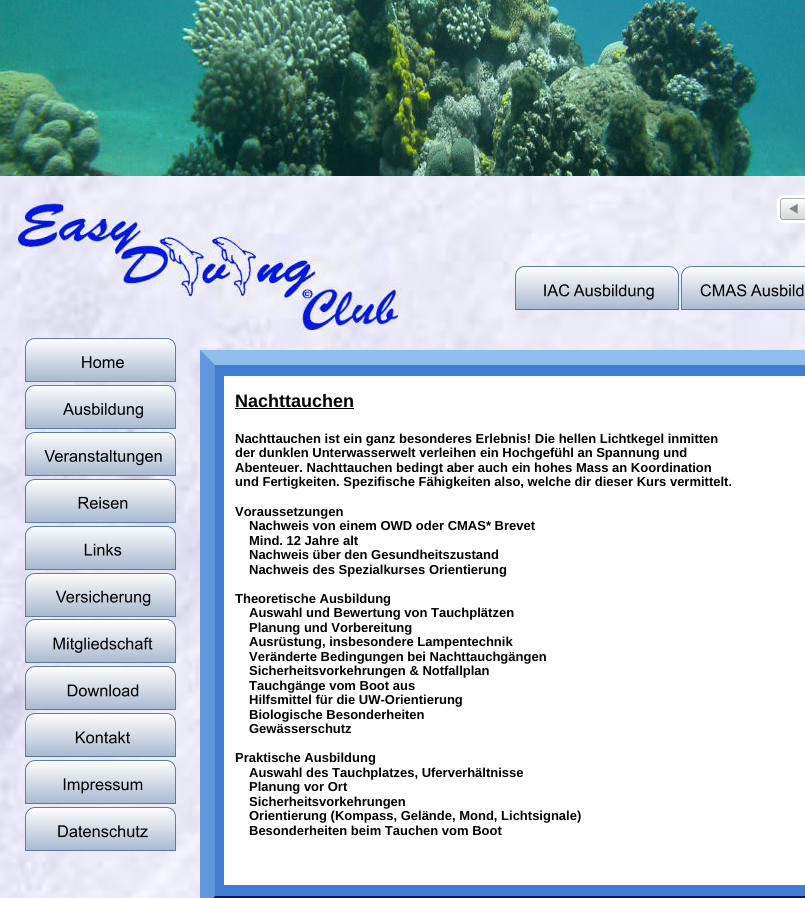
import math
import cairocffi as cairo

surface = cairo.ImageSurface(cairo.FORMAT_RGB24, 805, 898)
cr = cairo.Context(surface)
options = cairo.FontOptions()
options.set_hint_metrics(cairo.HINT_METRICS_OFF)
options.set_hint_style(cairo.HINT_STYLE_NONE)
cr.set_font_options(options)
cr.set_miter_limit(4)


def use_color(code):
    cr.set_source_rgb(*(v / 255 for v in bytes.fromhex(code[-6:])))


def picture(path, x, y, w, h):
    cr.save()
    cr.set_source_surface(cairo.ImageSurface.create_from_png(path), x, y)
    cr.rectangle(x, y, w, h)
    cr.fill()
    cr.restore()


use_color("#ffffff")
cr.paint()
picture("img15.png", 0, 176, 805, 722)
picture("img1.png", 515, 266, 164, 44)
picture("img2.png", 681, 266, 124, 44)
picture("img3.png", 25, 338, 151, 44)
picture("img4.png", 25, 385, 151, 44)
picture("img5.png", 25, 432, 151, 44)
picture("img6.png", 25, 479, 151, 44)
picture("img7.png", 25, 526, 151, 44)
picture("img8.png", 25, 573, 151, 44)
picture("img9.png", 25, 619, 151, 44)
picture("img10.png", 25, 666, 151, 44)
picture("img11.png", 25, 713, 151, 44)
picture("img12.png", 25, 760, 151, 44)
picture("img13.png", 25, 807, 151, 44)
picture("img14.png", 0, 0, 805, 176)
picture("img16.png", 18, 203, 384, 127)
picture("img17.png", 777, 195, 28, 28)
picture("img18.png", 200, 350, 605, 548)
use_color("#ffffff")
cr.rectangle(224, 376, 581, 509)
cr.fill()
cr.select_font_face("Liberation Sans", cairo.FONT_SLANT_NORMAL, cairo.FONT_WEIGHT_BOLD)
cr.set_font_size(18)
use_color("#000000")
cr.move_to(235, 407)
cr.show_text("Nachttauchen")
cr.rectangle(235, 408, 119, 1)
cr.fill()
cr.set_font_size(13)
cr.move_to(235, 443)
cr.show_text("Nachttauchen ist ein ganz besonderes Erlebnis! Die hellen Lichtkegel inmitten")
cr.move_to(235, 457)
cr.show_text("der dunklen Unterwasserwelt verleihen ein Hochgefühl an Spannung und")
cr.move_to(235, 472)
cr.show_text("Abenteuer. Nachttauchen bedingt aber auch ein hohes Mass an Koordination")
cr.move_to(235, 486)
cr.show_text("und Fertigkeiten. Spezifische Fähigkeiten also, welche dir dieser Kurs vermittelt.")
cr.move_to(235, 516)
cr.show_text("Voraussetzungen")
cr.move_to(249, 530)
cr.show_text("Nachweis von einem OWD oder CMAS* Brevet")
cr.move_to(249, 545)
cr.show_text("Mind. 12 Jahre alt")
cr.move_to(249, 559)
cr.show_text("Nachweis über den Gesundheitszustand")
cr.move_to(249, 574)
cr.show_text("Nachweis des Spezialkurses Orientierung")
cr.move_to(235, 603)
cr.show_text("Theoretische Ausbildung")
cr.move_to(249, 617)
cr.show_text("Auswahl und Bewertung von Tauchplätzen")
cr.move_to(249, 632)
cr.show_text("Planung und Vorbereitung")
cr.move_to(249, 646)
cr.show_text("Ausrüstung, insbesondere Lampentechnik")
cr.move_to(249, 661)
cr.show_text("Veränderte Bedingungen bei Nachttauchgängen")
cr.move_to(249, 675)
cr.show_text("Sicherheitsvorkehrungen & Notfallplan")
cr.move_to(249, 690)
cr.show_text("Tauchgänge vom Boot aus")
cr.move_to(249, 704)
cr.show_text("Hilfsmittel für die UW-Orientierung")
cr.move_to(249, 719)
cr.show_text("Biologische Besonderheiten")
cr.move_to(249, 733)
cr.show_text("Gewässerschutz")
cr.move_to(235, 762)
cr.show_text("Praktische Ausbildung")
cr.move_to(249, 777)
cr.show_text("Auswahl des Tauchplatzes, Uferverhältnisse")
cr.move_to(249, 791)
cr.show_text("Planung vor Ort")
cr.move_to(249, 806)
cr.show_text("Sicherheitsvorkehrungen")
cr.move_to(249, 820)
cr.show_text("Orientierung (Kompass, Gelände, Mond, Lichtsignale)")
cr.move_to(249, 835)
cr.show_text("Besonderheiten beim Tauchen vom Boot")
surface.write_to_png("result.png")
